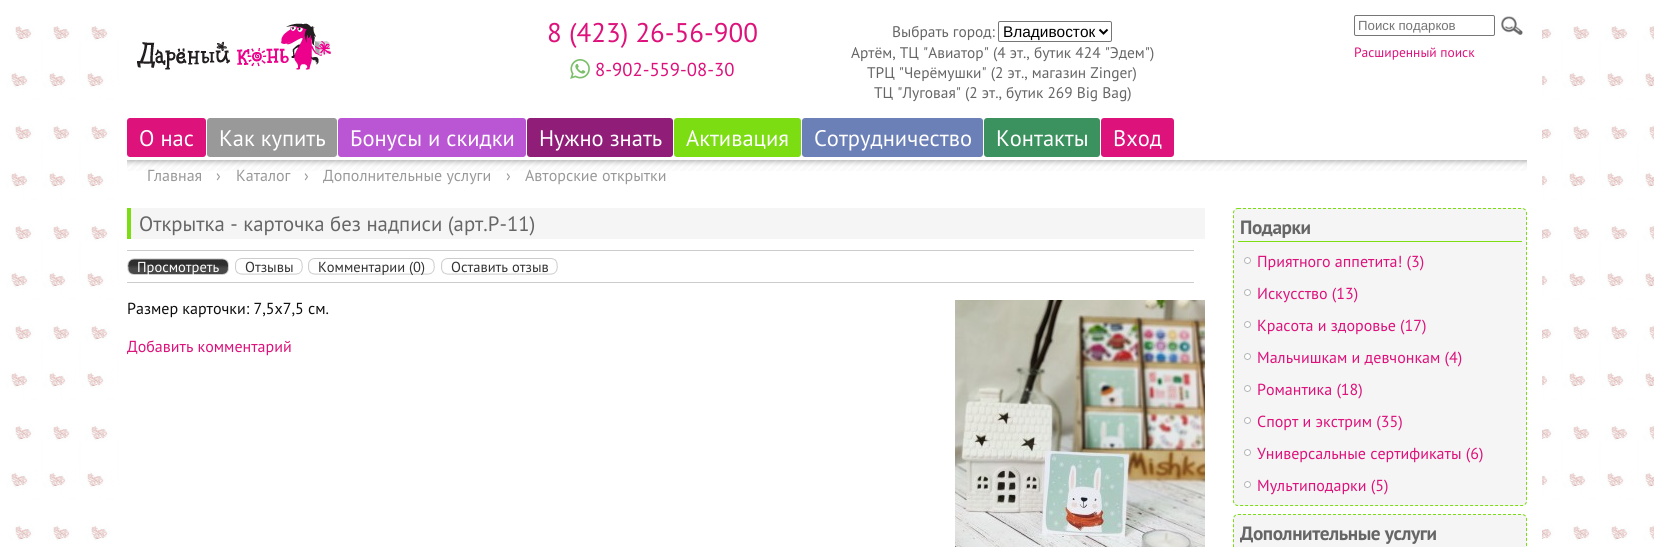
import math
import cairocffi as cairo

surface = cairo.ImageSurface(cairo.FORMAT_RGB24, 1654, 547)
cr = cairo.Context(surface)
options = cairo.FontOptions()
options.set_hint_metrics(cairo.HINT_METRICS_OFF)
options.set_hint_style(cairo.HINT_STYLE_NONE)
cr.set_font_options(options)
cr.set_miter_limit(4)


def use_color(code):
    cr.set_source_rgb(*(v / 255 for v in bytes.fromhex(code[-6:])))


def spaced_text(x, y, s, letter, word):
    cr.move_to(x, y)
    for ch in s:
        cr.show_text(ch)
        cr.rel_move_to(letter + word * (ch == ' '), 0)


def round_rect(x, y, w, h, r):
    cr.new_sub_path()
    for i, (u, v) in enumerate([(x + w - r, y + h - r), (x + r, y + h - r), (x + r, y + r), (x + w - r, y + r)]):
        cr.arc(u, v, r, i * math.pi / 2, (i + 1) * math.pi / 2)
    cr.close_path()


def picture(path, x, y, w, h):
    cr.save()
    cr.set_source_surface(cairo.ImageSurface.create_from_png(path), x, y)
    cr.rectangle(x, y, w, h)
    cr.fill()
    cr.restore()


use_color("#ffffff")
cr.paint()
picture("img1.png", 6, 26, 1648, 515)
use_color("#ffffff")
cr.rectangle(119, 26, 1423, 515)
cr.fill()
picture("img2.png", 137, 23, 194, 47)
cr.select_font_face("PT Sans")
cr.set_font_size(27)
use_color("#dd127b")
cr.move_to(547, 42)
cr.show_text("8 (423) 26-56-900")
picture("img3.png", 570, 59, 20, 20)
cr.set_font_size(18.75)
cr.move_to(595, 76)
cr.show_text("8-902-559-08-30")
cr.set_font_size(15.4)
use_color("#666666")
cr.move_to(892, 37)
cr.show_text("Выбрать город:")
round_rect(998.5, 21.5, 113, 20, 1.5)
use_color("#767676")
cr.set_line_width(1)
cr.stroke()
cr.new_path()
cr.move_to(1099.5, 29.5)
cr.line_to(1103.5, 33.5)
cr.line_to(1107.5, 29.5)
use_color("#000000")
cr.set_line_width(2)
cr.stroke()
cr.select_font_face("Liberation Sans")
cr.move_to(1003, 37)
cr.show_text("Владивосток")
cr.select_font_face("PT Sans")
use_color("#666666")
cr.move_to(851, 58)
cr.show_text("Артём, ТЦ \"Авиатор\" (4 эт., бутик 424 \"Эдем\")")
cr.move_to(867, 78)
cr.show_text("ТРЦ \"Черёмушки\" (2 эт., магазин Zinger)")
cr.move_to(874, 98)
cr.show_text("ТЦ \"Луговая\" (2 эт., бутик 269 Big Bag)")
round_rect(1354.5, 15.5, 140, 20, 1.5)
use_color("#767676")
cr.set_line_width(1)
cr.stroke()
cr.select_font_face("Liberation Sans")
cr.set_font_size(13.25)
use_color("#757575")
cr.move_to(1358, 30)
cr.show_text("Поиск подарков")
picture("img4.png", 1501, 16, 22, 19)
cr.select_font_face("PT Sans")
cr.set_font_size(13.5)
use_color("#dd127b")
cr.move_to(1354, 57)
cr.show_text("Расширенный поиск")
round_rect(127, 118, 79, 39, 3)
cr.fill()
cr.set_font_size(22.5)
use_color("#ffffff")
cr.move_to(139, 146)
cr.show_text("О нас")
use_color("#999999")
round_rect(207, 118, 130, 39, 3)
cr.fill()
use_color("#ffffff")
cr.move_to(219, 146)
cr.show_text("Как купить")
use_color("#ba55d3")
round_rect(338, 118, 188, 39, 3)
cr.fill()
use_color("#ffffff")
cr.move_to(350, 146)
cr.show_text("Бонусы и скидки")
use_color("#901d78")
round_rect(527, 118, 146, 39, 3)
cr.fill()
use_color("#ffffff")
cr.move_to(539, 146)
cr.show_text("Нужно знать")
use_color("#7bdd12")
round_rect(674, 118, 127, 39, 3)
cr.fill()
use_color("#ffffff")
cr.move_to(686, 146)
cr.show_text("Активация")
use_color("#6b80b7")
round_rect(802, 118, 181, 39, 3)
cr.fill()
use_color("#ffffff")
cr.move_to(814, 146)
cr.show_text("Сотрудничество")
use_color("#3b925e")
round_rect(984, 118, 116, 39, 3)
cr.fill()
use_color("#ffffff")
cr.move_to(996, 146)
cr.show_text("Контакты")
use_color("#dd127b")
round_rect(1101, 118, 73, 39, 3)
cr.fill()
use_color("#ffffff")
cr.move_to(1113, 146)
cr.show_text("Вход")
picture("img5.png", 127, 160, 1400, 11)
cr.set_font_size(16)
use_color("#999999")
cr.move_to(147, 181)
cr.show_text("Главная")
cr.move_to(216, 181)
cr.show_text("›")
cr.move_to(236, 181)
cr.show_text("Каталог")
cr.move_to(304, 181)
cr.show_text("›")
cr.move_to(323, 181)
cr.show_text("Дополнительные услуги")
cr.move_to(506, 181)
cr.show_text("›")
cr.move_to(525, 181)
cr.show_text("Авторские открытки")
use_color("#f5f5f5")
cr.rectangle(131, 208, 1074, 31)
cr.fill()
use_color("#7bdd12")
cr.rectangle(127, 208, 4, 31)
cr.fill()
cr.set_font_size(20.75)
use_color("#666666")
cr.move_to(139, 231)
cr.show_text("Открытка - карточка без надписи (арт.Р-11)")
use_color("#cccccc")
cr.rectangle(127, 250, 1067, 1)
cr.fill()
cr.rectangle(127, 282, 1067, 1)
cr.fill()
picture("img6.png", 127, 258, 96, 17)
picture("img7.png", 223, 258, 6, 17)
picture("img8.png", 235, 258, 61, 17)
picture("img9.png", 296, 258, 7, 17)
picture("img10.png", 308, 258, 120, 17)
picture("img9.png", 428, 258, 7, 17)
picture("img11.png", 441, 258, 110, 17)
picture("img9.png", 551, 258, 7, 17)
cr.set_font_size(14.5)
use_color("#ffffff")
cr.move_to(137, 272)
cr.show_text("Просмотреть")
use_color("#333333")
cr.move_to(245, 272)
cr.show_text("Отзывы")
cr.move_to(318, 272)
cr.show_text("Комментарии (0)")
cr.move_to(451, 272)
cr.show_text("Оставить отзыв")
cr.set_font_size(16)
use_color("#0e0e0e")
cr.move_to(127, 314)
cr.show_text("Размер карточки: 7,5х7,5 см.")
picture("img12.png", 955, 300, 250, 247)
use_color("#dd127b")
cr.move_to(127, 352)
cr.show_text("Добавить комментарий")
use_color("#f5f5f5")
round_rect(1233, 208, 294, 298, 5)
cr.fill()
cr.new_path()
cr.move_to(1238, 208.5)
cr.line_to(1522, 208.5)
cr.curve_to(1524.5, 208.5, 1526.5, 210.5, 1526.5, 213)
cr.line_to(1526.5, 501)
cr.curve_to(1526.5, 503.5, 1524.5, 505.5, 1522, 505.5)
cr.line_to(1238, 505.5)
cr.curve_to(1235.5, 505.5, 1233.5, 503.5, 1233.5, 501)
cr.line_to(1233.5, 213)
cr.curve_to(1233.5, 210.5, 1235.5, 208.5, 1238, 208.5)
cr.close_path()
use_color("#7bdd12")
cr.set_dash([3, 2])
cr.stroke()
cr.rectangle(1238, 241, 284, 1)
cr.fill()
cr.select_font_face("PT Sans", cairo.FONT_SLANT_NORMAL, cairo.FONT_WEIGHT_BOLD)
cr.set_font_size(19.25)
use_color("#666666")
spaced_text(1240, 234, "Подарки", -0.4, 0)
picture("img13.png", 1244, 257, 7, 7)
cr.select_font_face("PT Sans")
cr.set_font_size(16)
use_color("#dd127b")
cr.move_to(1257, 267)
cr.show_text("Приятного аппетита! (3)")
picture("img13.png", 1244, 289, 7, 7)
cr.move_to(1257, 299)
cr.show_text("Искусство (13)")
picture("img13.png", 1244, 321, 7, 7)
cr.move_to(1257, 331)
cr.show_text("Красота и здоровье (17)")
picture("img13.png", 1244, 353, 7, 7)
cr.move_to(1257, 363)
cr.show_text("Мальчишкам и девчонкам (4)")
picture("img13.png", 1244, 385, 7, 7)
cr.move_to(1257, 395)
cr.show_text("Романтика (18)")
picture("img13.png", 1244, 417, 7, 7)
cr.move_to(1257, 427)
cr.show_text("Спорт и экстрим (35)")
picture("img13.png", 1244, 449, 7, 7)
cr.move_to(1257, 459)
cr.show_text("Универсальные сертификаты (6)")
picture("img13.png", 1244, 481, 7, 7)
cr.move_to(1257, 491)
cr.show_text("Мультиподарки (5)")
use_color("#f5f5f5")
round_rect(1233, 514, 294, 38, 5)
cr.fill()
cr.new_path()
cr.move_to(1238, 514.5)
cr.line_to(1522, 514.5)
cr.curve_to(1524.5, 514.5, 1526.5, 516.5, 1526.5, 519)
cr.line_to(1526.5, 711)
cr.curve_to(1526.5, 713.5, 1524.5, 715.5, 1522, 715.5)
cr.line_to(1238, 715.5)
cr.curve_to(1235.5, 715.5, 1233.5, 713.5, 1233.5, 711)
cr.line_to(1233.5, 519)
cr.curve_to(1233.5, 516.5, 1235.5, 514.5, 1238, 514.5)
cr.close_path()
use_color("#7bdd12")
cr.stroke()
cr.select_font_face("PT Sans", cairo.FONT_SLANT_NORMAL, cairo.FONT_WEIGHT_BOLD)
cr.set_font_size(19.25)
use_color("#666666")
spaced_text(1240, 540, "Дополнительные услуги", -0.4, 0)
surface.write_to_png("result.png")
